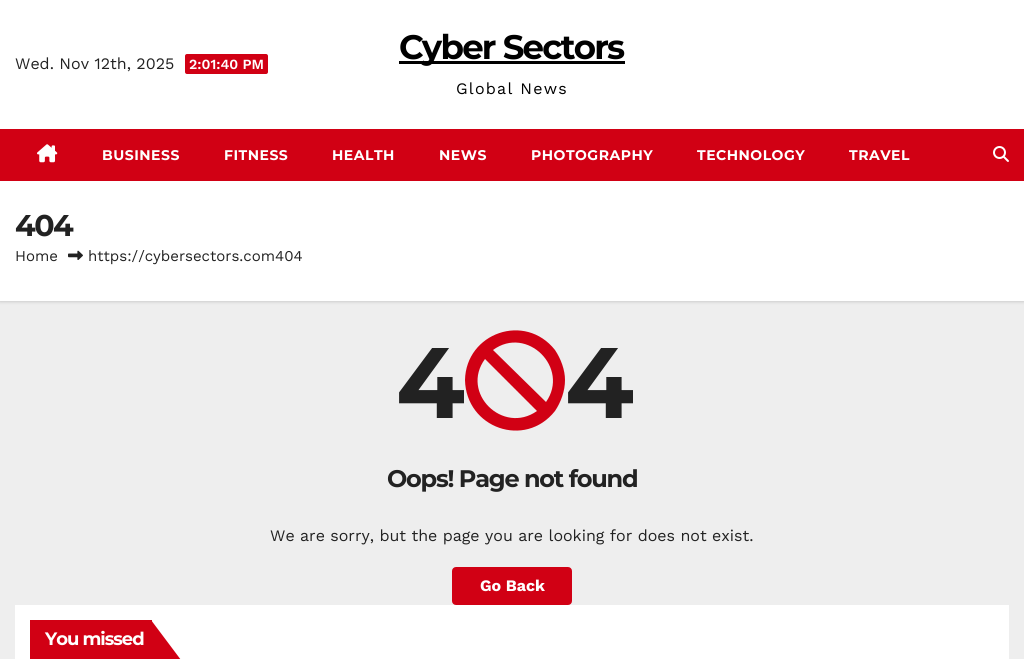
import math
import cairocffi as cairo

surface = cairo.ImageSurface(cairo.FORMAT_RGB24, 1024, 659)
cr = cairo.Context(surface)
options = cairo.FontOptions()
options.set_hint_metrics(cairo.HINT_METRICS_OFF)
options.set_hint_style(cairo.HINT_STYLE_NONE)
cr.set_font_options(options)
cr.set_miter_limit(4)


def use_color(code):
    cr.set_source_rgb(*(v / 255 for v in bytes.fromhex(code[-6:])))


def spaced_text(x, y, s, letter, word):
    cr.move_to(x, y)
    for ch in s:
        cr.show_text(ch)
        cr.rel_move_to(letter + word * (ch == ' '), 0)


def round_rect(x, y, w, h, r):
    cr.new_sub_path()
    for i, (u, v) in enumerate([(x + w - r, y + h - r), (x + r, y + h - r), (x + r, y + r), (x + w - r, y + r)]):
        cr.arc(u, v, r, i * math.pi / 2, (i + 1) * math.pi / 2)
    cr.close_path()


def shadow(x, y, w, h, r, blur, alpha):
    cr.push_group_with_content(cairo.CONTENT_ALPHA)
    cr.set_operator(cairo.OPERATOR_SOURCE)
    for i in range(15, -16, -2):
        e = blur * i / 6
        if min(w, h) + 2 * e > 0:
            cr.set_source_rgba(0, 0, 0, alpha * math.erfc((i - 1) / 8.5) / 2)
            round_rect(x - e, y - e, w + 2 * e, h + 2 * e, max(0, min(r + e + blur * .6, min(w, h) / 2 + e)))
            cr.fill()
    cr.mask(cr.pop_group())


def picture(path, x, y, w, h):
    cr.save()
    cr.set_source_surface(cairo.ImageSurface.create_from_png(path), x, y)
    cr.rectangle(x, y, w, h)
    cr.fill()
    cr.restore()


use_color("#eeeeee")
cr.paint()
use_color("#ffffff")
cr.rectangle(0, 0, 1024, 129)
cr.fill()
cr.select_font_face("Work Sans")
cr.set_font_size(16)
use_color("#222222")
cr.move_to(15, 69)
cr.show_text("Wed. Nov 12th, 2025")
use_color("#d10014")
round_rect(185, 54, 83, 20, 2)
cr.fill()
cr.select_font_face("Work Sans SemiBold")
cr.set_font_size(14)
use_color("#ffffff")
cr.move_to(189, 69)
cr.show_text("2:01:40 PM")
use_color("#000000")
cr.rectangle(399, 61, 226, 3)
cr.fill()
cr.select_font_face("Montserrat", cairo.FONT_SLANT_NORMAL, cairo.FONT_WEIGHT_BOLD)
cr.set_font_size(34)
spaced_text(399, 59, "Cyber Sectors", -1.75, 0)
cr.select_font_face("Work Sans")
cr.set_font_size(16)
spaced_text(456, 94, "Global News", 1.25, 0)
use_color("#000000")
shadow(0, 182, 1024, 120, 0, 1.5, 0.15)
use_color("#d10014")
cr.rectangle(0, 129, 1024, 52)
cr.fill()
picture("img1.png", 37, 144, 21, 19)
cr.select_font_face("Montserrat", cairo.FONT_SLANT_NORMAL, cairo.FONT_WEIGHT_BOLD)
cr.set_font_size(14)
use_color("#ffffff")
spaced_text(102, 160, "BUSINESS", 0.5, 0)
spaced_text(224, 160, "FITNESS", 0.5, 0)
spaced_text(332, 160, "HEALTH", 0.5, 0)
spaced_text(439, 160, "NEWS", 0.5, 0)
spaced_text(531, 160, "PHOTOGRAPHY", 0.5, 0)
spaced_text(697, 160, "TECHNOLOGY", 0.5, 0)
spaced_text(849, 160, "TRAVEL", 0.5, 0)
picture("img2.png", 993, 146, 16, 16)
cr.rectangle(0, 181, 1024, 120)
cr.fill()
cr.set_font_size(30)
use_color("#222222")
spaced_text(15, 236, "404", -1.5, 0)
cr.select_font_face("Work Sans")
cr.set_font_size(15)
cr.move_to(15, 261)
cr.show_text("Home")
picture("img3.png", 68, 250, 15, 10)
cr.move_to(88, 261)
cr.show_text("https://cybersectors.com404")
cr.select_font_face("Montserrat", cairo.FONT_SLANT_NORMAL, cairo.FONT_WEIGHT_BOLD)
cr.set_font_size(100)
spaced_text(396, 418, "4", -5, 0)
use_color("#d10014")
cr.new_path()
cr.move_to(537, 411)
cr.line_to(485, 359)
cr.curve_to(460, 393, 503, 435, 537, 411)
cr.close_path()
cr.move_to(546, 402)
cr.curve_to(570, 368, 527, 325, 493, 350)
cr.close_path()
cr.move_to(465, 380)
cr.curve_to(466, 333, 525, 312, 555, 350)
cr.curve_to(561, 359, 565, 370, 565, 380)
cr.curve_to(565, 391, 561, 402, 555, 411)
cr.curve_to(525, 449, 466, 428, 465, 380)
cr.close_path()
cr.fill()
use_color("#222222")
spaced_text(565, 418, "4", -5, 0)
cr.set_font_size(24)
spaced_text(387, 487, "Oops! Page not found", -1.2, 0)
cr.select_font_face("Work Sans")
cr.set_font_size(16)
cr.move_to(270, 541)
cr.show_text("We are sorry, but the page you are looking for does not exist.")
use_color("#d10014")
round_rect(453, 568, 118, 36, 3)
cr.fill_preserve()
cr.stroke()
cr.select_font_face("Work Sans", cairo.FONT_SLANT_NORMAL, cairo.FONT_WEIGHT_BOLD)
use_color("#ffffff")
cr.move_to(480, 591)
cr.show_text("Go Back")
cr.rectangle(15, 605, 994, 54)
cr.fill()
use_color("#d10014")
cr.rectangle(30, 620, 122, 39)
cr.fill()
cr.select_font_face("Montserrat", cairo.FONT_SLANT_NORMAL, cairo.FONT_WEIGHT_BOLD)
cr.set_font_size(18)
use_color("#ffffff")
spaced_text(45, 645, "You missed", -1, 0)
use_color("#d10014")
cr.new_path()
cr.move_to(151, 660)
cr.line_to(151, 620)
cr.line_to(181, 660)
cr.close_path()
cr.fill()
surface.write_to_png("result.png")
